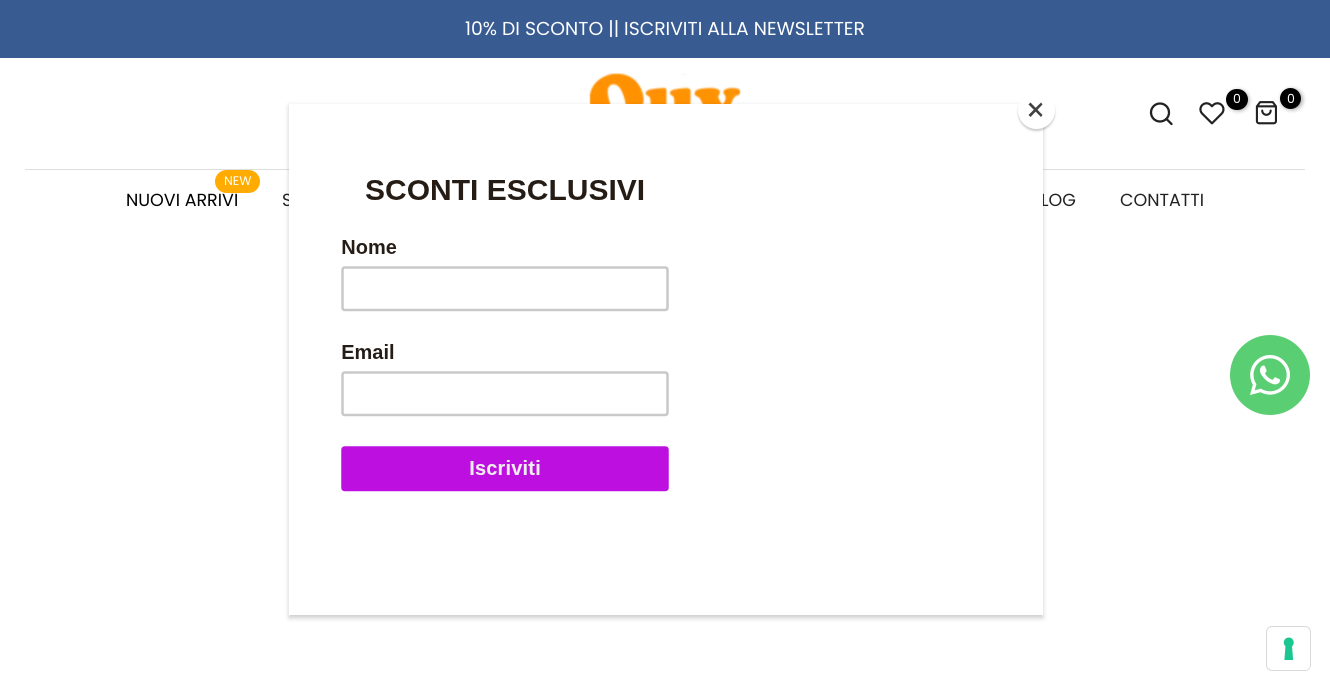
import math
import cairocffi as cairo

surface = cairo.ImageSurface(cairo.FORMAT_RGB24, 1330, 690)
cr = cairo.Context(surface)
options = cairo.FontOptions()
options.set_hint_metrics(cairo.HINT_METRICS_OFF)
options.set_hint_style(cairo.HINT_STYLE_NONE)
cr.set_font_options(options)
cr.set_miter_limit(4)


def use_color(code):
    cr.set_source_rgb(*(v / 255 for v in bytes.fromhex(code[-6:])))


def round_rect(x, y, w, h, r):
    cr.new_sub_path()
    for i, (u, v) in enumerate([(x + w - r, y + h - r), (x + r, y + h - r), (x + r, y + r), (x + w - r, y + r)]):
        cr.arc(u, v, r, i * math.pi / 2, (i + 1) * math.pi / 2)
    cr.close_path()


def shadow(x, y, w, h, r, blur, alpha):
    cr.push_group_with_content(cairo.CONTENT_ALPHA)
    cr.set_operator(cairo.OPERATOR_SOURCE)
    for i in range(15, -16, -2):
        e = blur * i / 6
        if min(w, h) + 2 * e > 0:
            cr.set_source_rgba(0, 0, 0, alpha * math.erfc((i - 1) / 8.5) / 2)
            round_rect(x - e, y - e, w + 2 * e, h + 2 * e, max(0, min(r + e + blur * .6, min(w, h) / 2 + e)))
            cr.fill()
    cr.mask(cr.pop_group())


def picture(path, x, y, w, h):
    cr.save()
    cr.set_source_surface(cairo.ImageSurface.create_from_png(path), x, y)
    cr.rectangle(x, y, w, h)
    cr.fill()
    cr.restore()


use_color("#ffffff")
cr.paint()
use_color("#385b92")
cr.rectangle(0, 0, 1330, 58)
cr.fill()
cr.select_font_face("Poppins")
cr.set_font_size(18.75)
use_color("#ffffff")
cr.move_to(465, 35)
cr.show_text("10% DI SCONTO || ISCRIVITI ALLA NEWSLETTER")
picture("img1.png", 589, 73, 152, 31)
picture("img2.png", 1199, 102, 26, 23)
use_color("#000000")
shadow(1228, 90, 21, 21, 10.5, 2, 0.3)
use_color("#000000")
round_rect(1226, 89, 22, 21, 10.5)
cr.fill()
cr.set_font_size(12.5)
use_color("#ffffff")
cr.move_to(1233, 103)
cr.show_text("0")
picture("img3.png", 1255, 101, 22, 24)
use_color("#000000")
shadow(1281, 89, 22, 21, 10.5, 2, 0.3)
use_color("#000000")
cr.arc(1290.5, 98.5, 10.5, 0, 2 * math.pi)
cr.fill()
use_color("#ffffff")
cr.move_to(1287, 103)
cr.show_text("0")
cr.new_path()
cr.arc(1160, 112.5, 9, 0, 2 * math.pi)
use_color("#222222")
cr.set_line_width(2.3)
cr.stroke()
cr.new_path()
cr.move_to(1171.5, 124)
cr.line_to(1166.5, 119)
cr.set_line_cap(cairo.LINE_CAP_ROUND)
cr.set_line_join(cairo.LINE_JOIN_ROUND)
cr.stroke()
use_color("#dedede")
cr.rectangle(25, 169, 1280, 1)
cr.fill()
use_color("#ffab00")
round_rect(215, 170, 45, 23, 11.5)
cr.fill()
use_color("#ffffff")
cr.move_to(224, 185)
cr.show_text("NEW")
cr.set_font_size(17.5)
use_color("#000000")
cr.move_to(126, 206)
cr.show_text("NUOVI ARRIVI")
use_color("#222222")
cr.move_to(282, 206)
cr.show_text("S")
cr.move_to(1041, 206)
cr.show_text("LOG")
cr.move_to(1120, 206)
cr.show_text("CONTATTI")
cr.save()
cr.set_fill_rule(cairo.FILL_RULE_EVEN_ODD)
cr.new_path()
cr.move_to(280, 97)
cr.line_to(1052, 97)
cr.line_to(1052, 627)
cr.line_to(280, 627)
cr.close_path()
cr.move_to(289, 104)
cr.line_to(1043, 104)
cr.line_to(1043, 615)
cr.line_to(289, 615)
cr.close_path()
cr.clip()
use_color("#000000")
shadow(289, 106, 754, 512, 0, 2.5, 0.2)
cr.restore()
picture("img4.png", 289, 104, 754, 388)
use_color("#000000")
shadow(1018, 94, 37, 37, 18.5, 1, 0.2)
use_color("#ffffff")
round_rect(1018, 91, 37, 38, 18.5)
cr.fill()
use_color("#414141")
cr.new_path()
cr.move_to(1041, 102.5)
cr.line_to(1042.5, 104.5)
cr.line_to(1030.5, 117)
cr.line_to(1028.5, 115)
cr.close_path()
cr.fill()
cr.new_path()
cr.move_to(1028.5, 104.5)
cr.line_to(1030.5, 102.5)
cr.line_to(1042.5, 115)
cr.line_to(1041, 117)
cr.close_path()
cr.fill()
use_color("#59ce72")
cr.arc(1270, 375, 40, 0, 2 * math.pi)
cr.fill()
picture("img5.png", 1250, 355, 40, 40)
round_rect(1266.5, 626.5, 44, 44, 5.5)
use_color("#d9d9d9")
cr.set_line_width(1)
cr.set_line_cap(cairo.LINE_CAP_BUTT)
cr.set_line_join(cairo.LINE_JOIN_MITER)
cr.stroke()
use_color("#ffffff")
round_rect(1268, 628, 42, 42, 5)
cr.fill()
picture("img6.png", 1283, 637, 11, 23)
surface.write_to_png("result.png")
